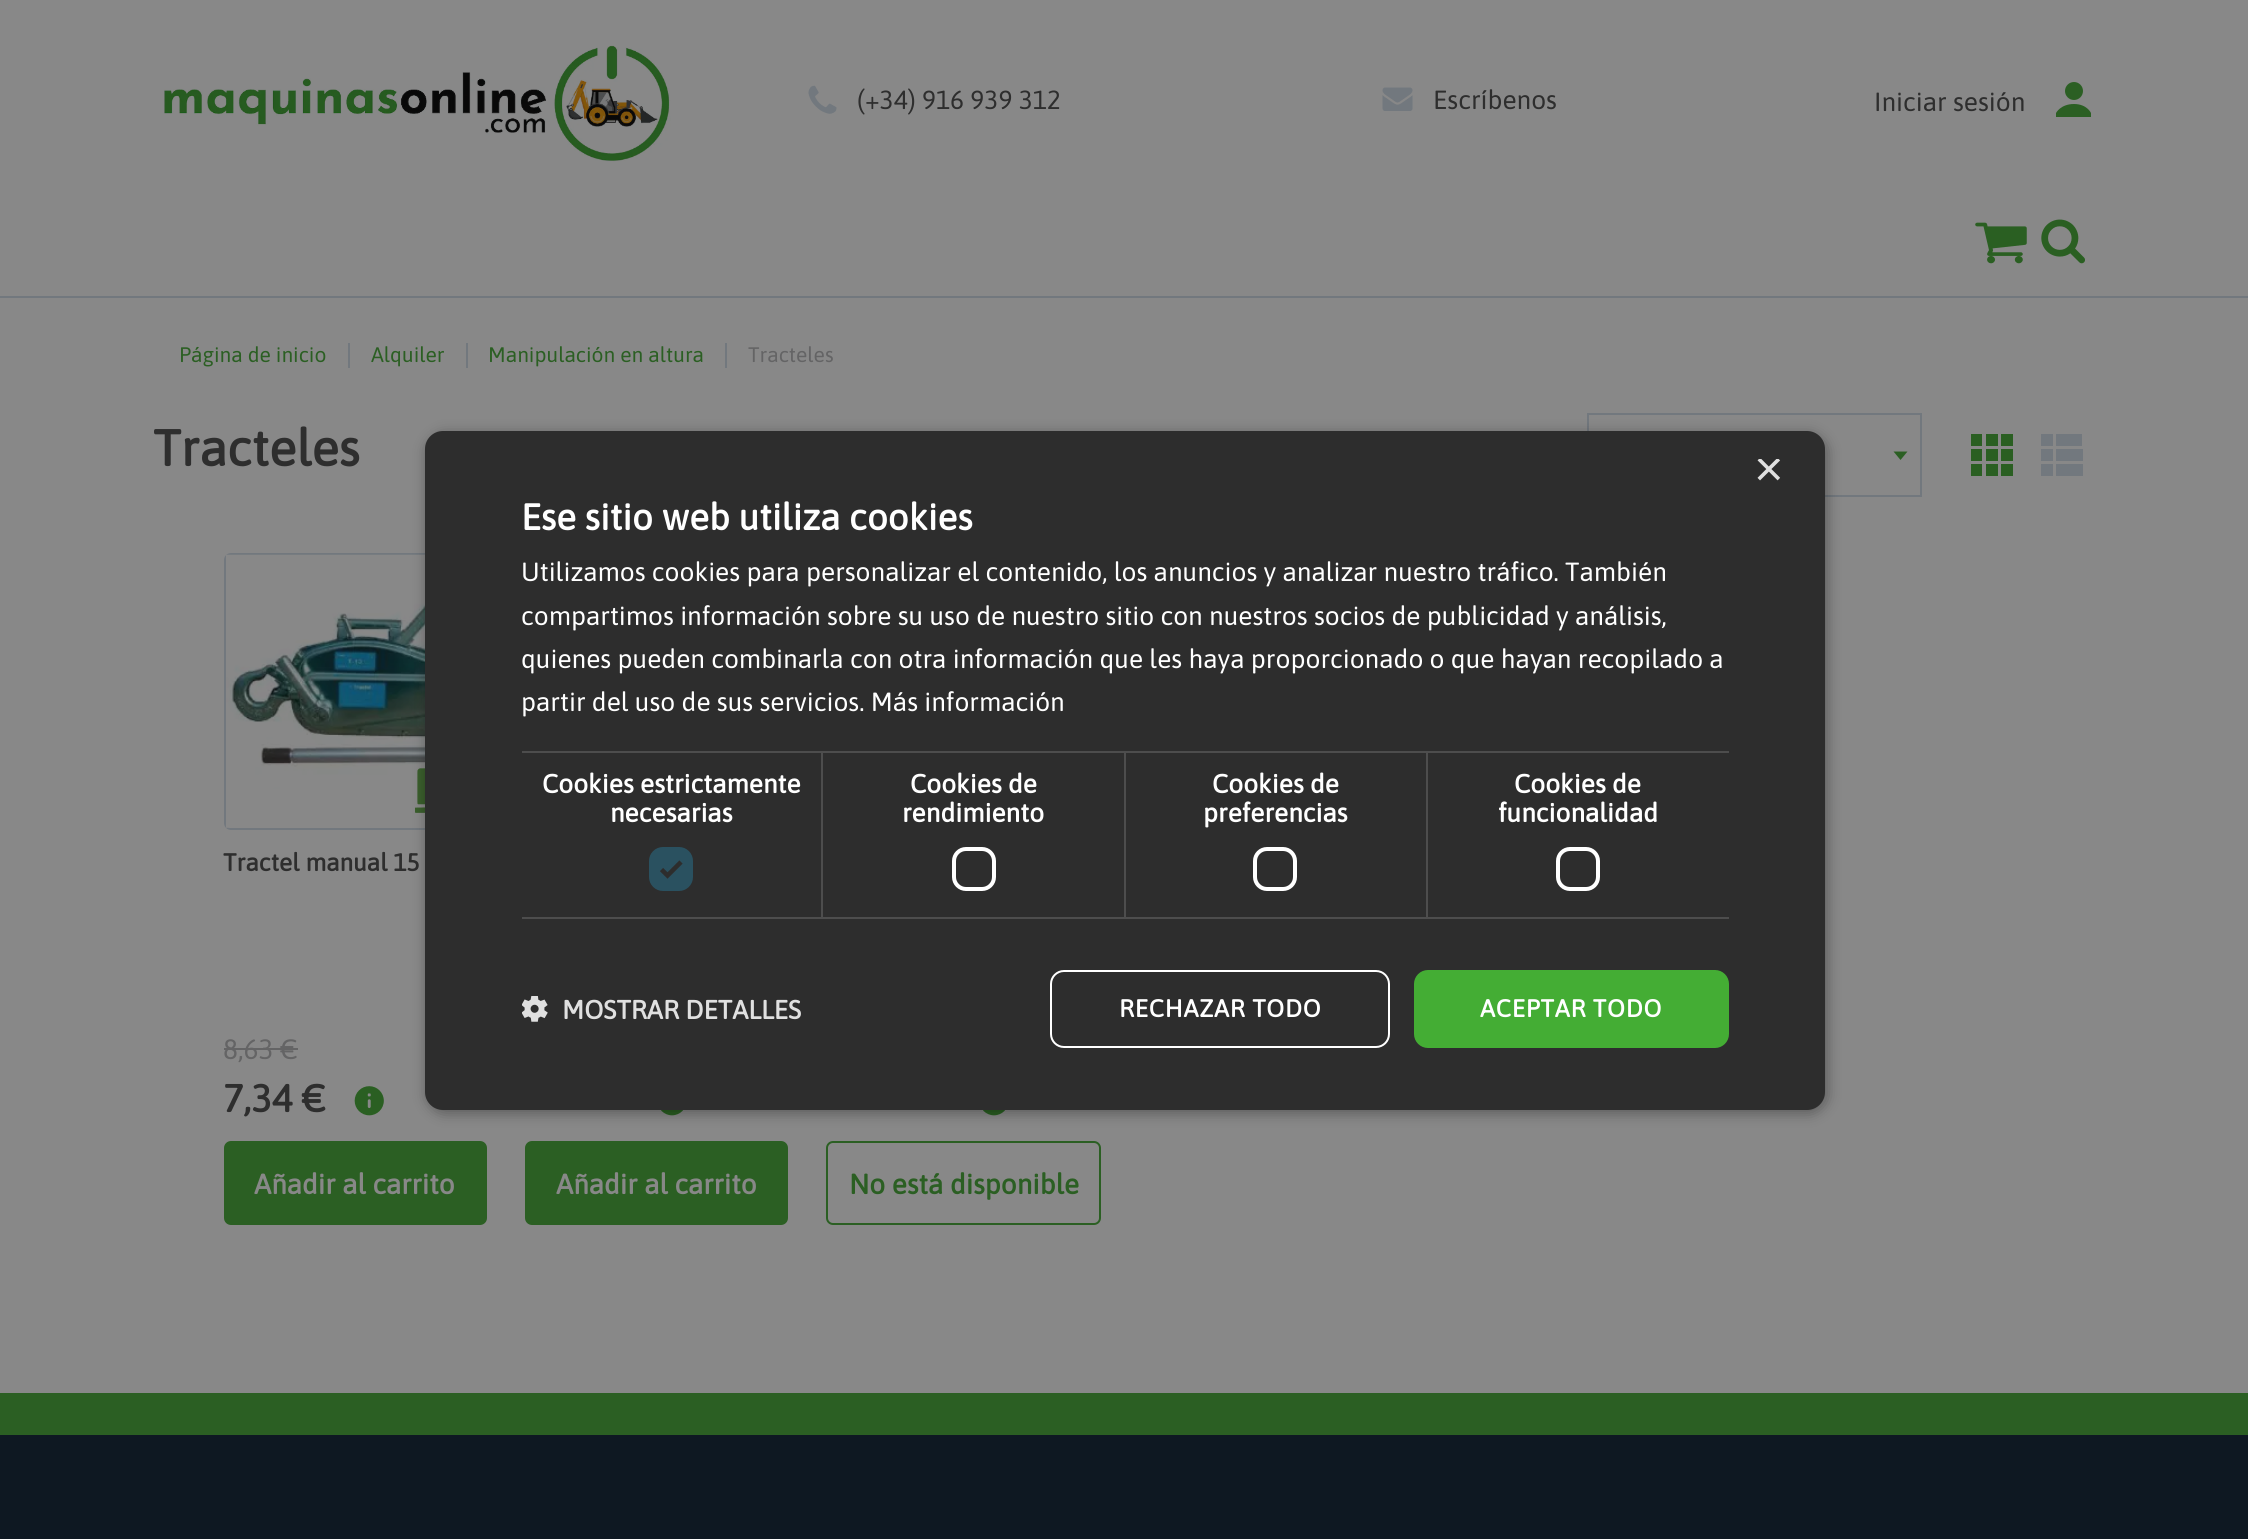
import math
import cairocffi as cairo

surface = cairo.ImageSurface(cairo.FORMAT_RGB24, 2248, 1539)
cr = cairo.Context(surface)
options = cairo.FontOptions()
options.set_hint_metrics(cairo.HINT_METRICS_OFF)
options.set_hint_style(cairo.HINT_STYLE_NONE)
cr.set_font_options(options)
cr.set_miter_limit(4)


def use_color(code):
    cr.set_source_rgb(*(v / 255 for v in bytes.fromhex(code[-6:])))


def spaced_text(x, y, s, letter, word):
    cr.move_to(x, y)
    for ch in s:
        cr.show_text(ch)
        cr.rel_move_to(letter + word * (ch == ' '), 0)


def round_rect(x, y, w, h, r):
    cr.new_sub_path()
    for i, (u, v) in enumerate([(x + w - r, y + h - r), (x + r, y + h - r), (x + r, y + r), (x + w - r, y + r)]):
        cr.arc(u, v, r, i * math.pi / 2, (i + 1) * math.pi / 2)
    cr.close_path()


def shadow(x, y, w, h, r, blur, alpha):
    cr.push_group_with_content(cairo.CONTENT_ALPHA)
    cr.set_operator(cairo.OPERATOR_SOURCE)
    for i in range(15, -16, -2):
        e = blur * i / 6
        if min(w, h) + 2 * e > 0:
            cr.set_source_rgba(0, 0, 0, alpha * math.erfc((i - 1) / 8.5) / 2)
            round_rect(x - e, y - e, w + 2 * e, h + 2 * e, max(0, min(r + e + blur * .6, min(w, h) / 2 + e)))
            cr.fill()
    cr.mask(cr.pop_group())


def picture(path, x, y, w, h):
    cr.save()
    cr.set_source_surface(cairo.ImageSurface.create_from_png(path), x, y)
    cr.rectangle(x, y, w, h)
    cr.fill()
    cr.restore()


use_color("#888888")
cr.paint()
use_color("#72787e")
cr.rectangle(0, 296, 2248, 2)
cr.fill()
picture("img1.png", 164, 45, 507, 117)
picture("img2.png", 808, 85, 29, 29)
cr.select_font_face("Asap")
cr.set_font_size(26.25)
use_color("#2e2e2e")
cr.move_to(857, 109)
cr.show_text("(+34) 916 939 312")
picture("img3.png", 1382, 87, 31, 24)
cr.move_to(1433, 109)
cr.show_text("Escríbenos")
cr.move_to(1874, 111)
cr.show_text("Iniciar sesión")
use_color("#2b5f23")
cr.new_path()
cr.arc(2074, 91, 9, 0, 2 * math.pi)
cr.fill()
cr.new_path()
cr.move_to(2074, 104)
cr.curve_to(2060.5, 104, 2056, 113, 2056, 113)
cr.line_to(2056, 117)
cr.line_to(2091, 117)
cr.line_to(2091, 113)
cr.curve_to(2091, 113, 2087, 104, 2074, 104)
cr.close_path()
cr.fill()
picture("img4.png", 1975, 222, 52, 42)
picture("img5.png", 2041, 219, 44, 45)
cr.set_font_size(21)
cr.move_to(179, 362)
cr.show_text("Página de inicio")
use_color("#72787e")
cr.rectangle(348, 343, 2, 25)
cr.fill()
use_color("#2b5f23")
cr.move_to(371, 362)
cr.show_text("Alquiler")
use_color("#72787e")
cr.rectangle(466, 343, 2, 25)
cr.fill()
use_color("#2b5f23")
cr.move_to(488, 362)
cr.show_text("Manipulación en altura")
use_color("#72787e")
cr.rectangle(725, 343, 2, 25)
cr.fill()
use_color("#646465")
cr.move_to(748, 362)
cr.show_text("Tracteles")
cr.select_font_face("Asap", cairo.FONT_SLANT_NORMAL, cairo.FONT_WEIGHT_BOLD)
cr.set_font_size(50.75)
use_color("#2e2e2e")
cr.move_to(153, 466)
cr.show_text("Tracteles")
cr.rectangle(1588, 414, 333, 82)
use_color("#72787e")
cr.stroke()
use_color("#2b5f23")
cr.set_fill_rule(cairo.FILL_RULE_EVEN_ODD)
cr.new_path()
cr.move_to(1900.5, 460)
cr.line_to(1907.5, 451.5)
cr.line_to(1893.5, 451.5)
cr.close_path()
cr.fill()
picture("img6.png", 1971, 434, 42, 42)
use_color("#72787e")
cr.rectangle(2041, 434, 12, 12)
cr.fill()
cr.rectangle(2056, 434, 26, 12)
cr.fill()
cr.rectangle(2041, 449, 12, 12)
cr.fill()
cr.rectangle(2056, 449, 27, 12)
cr.fill()
cr.rectangle(2041, 464, 12, 12)
cr.fill()
cr.rectangle(2056, 464, 27, 12)
cr.fill()
round_rect(225, 554, 271, 275, 6)
cr.stroke()
picture("img7.png", 226, 554, 199, 274)
picture("img8.png", 415, 768, 10, 45)
cr.set_font_size(24.5)
use_color("#2e2e2e")
cr.move_to(223, 871)
cr.show_text("Tractel manual 15")
cr.select_font_face("Asap")
cr.set_font_size(28)
use_color("#646465")
cr.move_to(223, 1059)
cr.show_text("8,63 €")
cr.rectangle(224, 1048, 74, 2)
cr.fill()
cr.select_font_face("Asap", cairo.FONT_SLANT_NORMAL, cairo.FONT_WEIGHT_BOLD)
cr.set_font_size(38.5)
use_color("#2e2e2e")
cr.move_to(223, 1112)
cr.show_text("7,34 €")
picture("img9.png", 354, 1086, 30, 30)
use_color("#2b5f23")
round_rect(224, 1141, 263, 84, 7)
cr.fill()
cr.set_font_size(28)
use_color("#888888")
cr.move_to(254, 1194)
cr.show_text("Añadir al carrito")
picture("img10.png", 661, 1110, 23, 6)
use_color("#2b5f23")
round_rect(525, 1141, 263, 84, 7)
cr.fill()
use_color("#888888")
cr.move_to(556, 1194)
cr.show_text("Añadir al carrito")
picture("img10.png", 983, 1110, 23, 6)
round_rect(827, 1142, 273, 82, 6)
use_color("#2b5f23")
cr.stroke()
cr.move_to(849, 1194)
cr.show_text("No está disponible")
use_color("#0e1822")
cr.rectangle(0, 1435, 2248, 104)
cr.fill()
use_color("#2b5f23")
cr.rectangle(0, 1393, 2248, 42)
cr.fill()
use_color("#000000")
shadow(427, 434, 1400, 679, 18, 7, 0.35)
use_color("#2d2d2d")
round_rect(425, 431, 1400, 679, 18)
cr.fill()
cr.save()
cr.set_fill_rule(cairo.FILL_RULE_WINDING)
cr.rectangle(1755, 459, 27, 26)
cr.clip()
cr.select_font_face("Liberation Sans")
cr.set_font_size(50.75)
use_color("#e0e0e0")
cr.move_to(1754, 486)
cr.show_text("×")
cr.restore()
cr.set_font_size(36.75)
use_color("#ffffff")
cr.move_to(521, 530)
cr.show_text("Ese sitio web utiliza cookies")
cr.select_font_face("Asap")
cr.set_font_size(26.25)
cr.move_to(521, 581)
cr.show_text("Utilizamos cookies para personalizar el contenido, los anuncios y analizar nuestro tráfico. También")
cr.move_to(521, 625)
cr.show_text("compartimos información sobre su uso de nuestro sitio con nuestros socios de publicidad y análisis,")
cr.move_to(521, 668)
cr.show_text("quienes pueden combinarla con otra información que les haya proporcionado o que hayan recopilado a")
cr.move_to(521, 711)
cr.show_text("partir del uso de sus servicios. Más información")
use_color("#4d4d4d")
cr.rectangle(522, 751, 603, 2)
cr.fill()
cr.rectangle(821, 751, 2, 168)
cr.fill()
cr.rectangle(522, 917, 301, 2)
cr.fill()
cr.select_font_face("Asap", cairo.FONT_SLANT_NORMAL, cairo.FONT_WEIGHT_BOLD)
use_color("#ffffff")
cr.move_to(542, 793)
cr.show_text("Cookies estrictamente")
cr.move_to(610, 822)
cr.show_text("necesarias")
use_color("#2a5160")
round_rect(649, 847, 44, 44, 14)
cr.fill()
cr.new_path()
cr.move_to(661.5, 869.5)
cr.line_to(667.5, 875.5)
cr.line_to(681, 862)
use_color("#2d2d2d")
cr.set_line_width(4.6)
cr.stroke()
use_color("#4d4d4d")
cr.rectangle(1124, 751, 2, 168)
cr.fill()
cr.rectangle(823, 917, 302, 2)
cr.fill()
use_color("#ffffff")
cr.move_to(910, 793)
cr.show_text("Cookies de")
cr.move_to(902, 822)
cr.show_text("rendimiento")
round_rect(954, 849, 40, 40, 12)
cr.set_line_width(4)
cr.stroke()
use_color("#4d4d4d")
cr.rectangle(1125, 751, 604, 2)
cr.fill()
cr.rectangle(1426, 751, 2, 168)
cr.fill()
cr.rectangle(1125, 917, 604, 2)
cr.fill()
use_color("#ffffff")
cr.move_to(1212, 793)
cr.show_text("Cookies de")
cr.move_to(1203, 822)
cr.show_text("preferencias")
round_rect(1255, 849, 40, 40, 12)
cr.stroke()
cr.move_to(1514, 793)
cr.show_text("Cookies de")
cr.move_to(1498, 822)
cr.show_text("funcionalidad")
round_rect(1558, 849, 40, 40, 12)
cr.stroke()
picture("img11.png", 522, 996, 26, 26)
use_color("#e0e0e0")
cr.move_to(562, 1019)
cr.show_text("MOSTRAR DETALLES")
round_rect(1051, 971, 338, 76, 13)
use_color("#ffffff")
cr.set_line_width(2)
cr.stroke()
cr.set_font_size(24.5)
spaced_text(1119, 1017, "RECHAZAR TODO", 0.75, 0)
use_color("#44ad34")
round_rect(1414, 970, 315, 78, 14)
cr.fill()
use_color("#ffffff")
spaced_text(1480, 1017, "ACEPTAR TODO", 0.75, 0)
surface.write_to_png("result.png")
